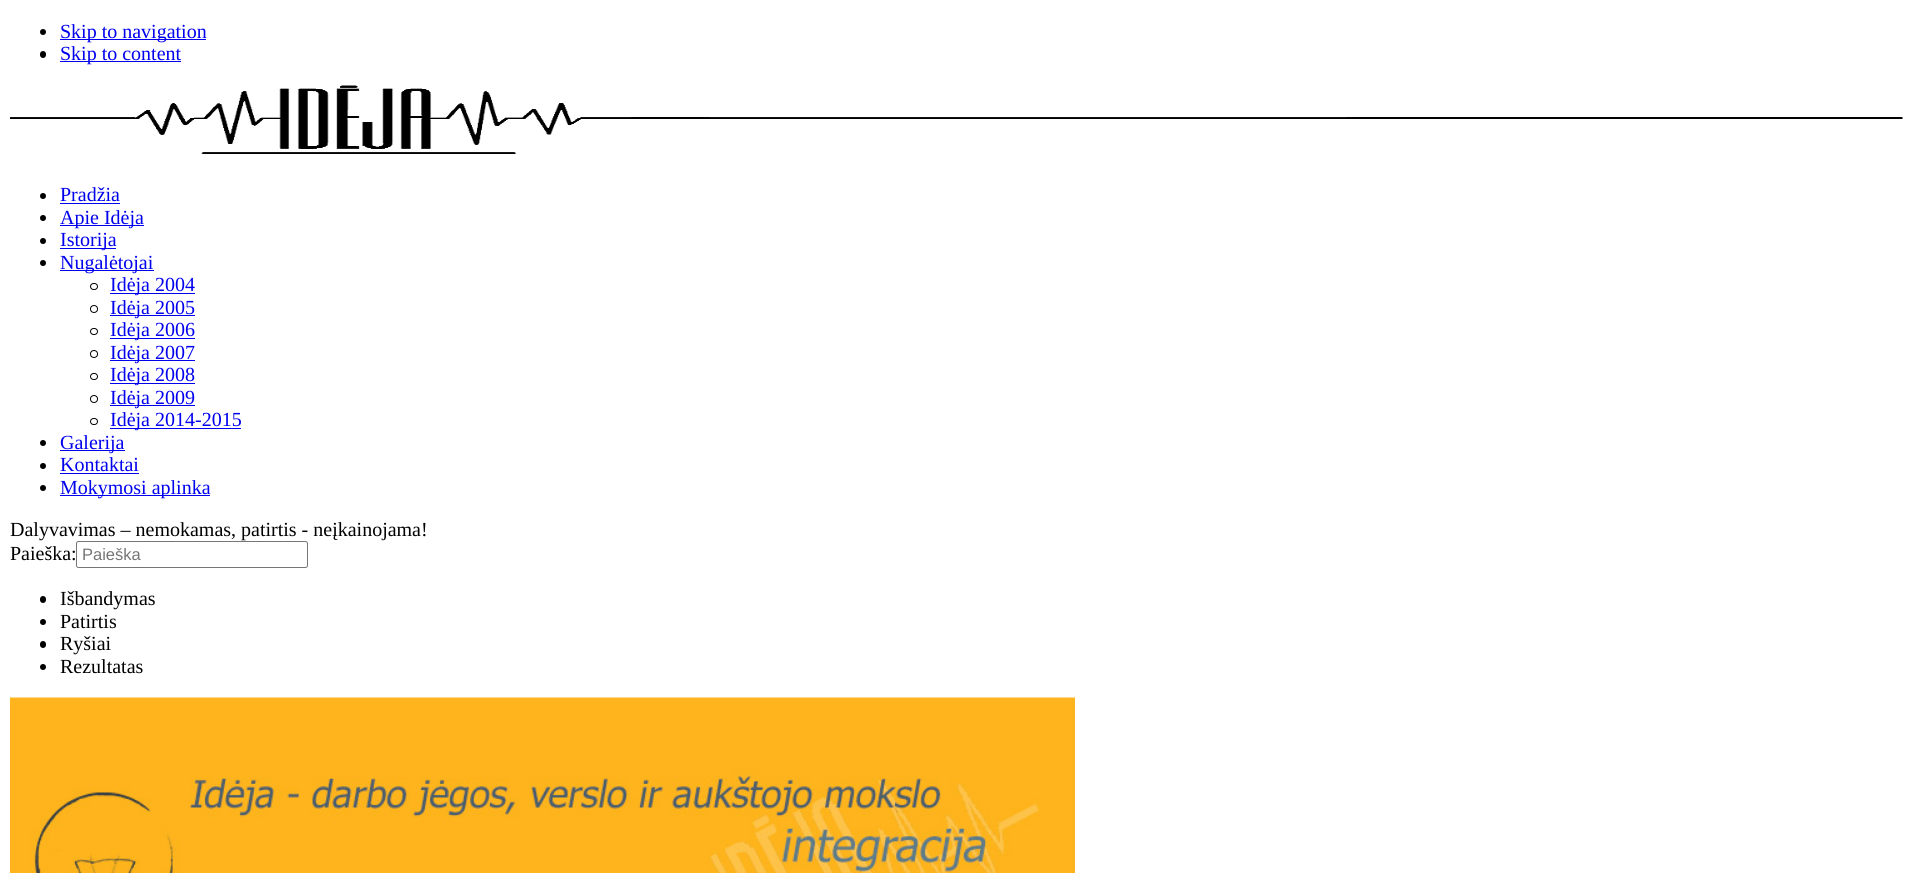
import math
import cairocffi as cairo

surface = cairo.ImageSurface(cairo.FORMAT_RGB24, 1912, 873)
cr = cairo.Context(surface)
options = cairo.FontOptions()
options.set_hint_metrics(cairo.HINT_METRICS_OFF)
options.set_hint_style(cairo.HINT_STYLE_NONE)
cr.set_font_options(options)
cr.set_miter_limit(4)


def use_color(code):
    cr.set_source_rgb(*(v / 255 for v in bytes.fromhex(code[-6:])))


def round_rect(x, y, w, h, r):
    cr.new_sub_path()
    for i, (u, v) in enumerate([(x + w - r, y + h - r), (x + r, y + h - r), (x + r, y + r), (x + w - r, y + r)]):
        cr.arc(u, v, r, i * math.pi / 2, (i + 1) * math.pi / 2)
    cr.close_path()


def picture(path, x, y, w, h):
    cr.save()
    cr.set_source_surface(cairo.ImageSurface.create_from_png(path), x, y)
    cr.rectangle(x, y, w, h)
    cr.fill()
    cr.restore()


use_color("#ffffff")
cr.paint()
use_color("#000000")
cr.arc(43, 32, 3, 0, 2 * math.pi)
cr.fill()
use_color("#0000ee")
cr.rectangle(60, 39, 146, 1)
cr.fill()
cr.select_font_face("Liberation Serif")
cr.set_font_size(20)
cr.move_to(60, 38)
cr.show_text("Skip to navigation")
use_color("#000000")
round_rect(40, 51, 6, 7, 3)
cr.fill()
use_color("#0000ee")
cr.rectangle(60, 61, 121, 1)
cr.fill()
cr.move_to(60, 60)
cr.show_text("Skip to content")
picture("img1.png", 10, 85, 1893, 69)
use_color("#000000")
cr.arc(43, 196, 3, 0, 2 * math.pi)
cr.fill()
use_color("#0000ee")
cr.move_to(60, 201)
cr.show_text("Pradžia")
cr.rectangle(60, 203, 60, 1)
cr.fill()
use_color("#000000")
cr.arc(43, 218, 3, 0, 2 * math.pi)
cr.fill()
use_color("#0000ee")
cr.rectangle(60, 225, 84, 1)
cr.fill()
cr.move_to(60, 224)
cr.show_text("Apie Idėja")
use_color("#000000")
cr.new_path()
cr.arc(43, 241, 3, 0, 2 * math.pi)
cr.fill()
use_color("#0000ee")
cr.rectangle(60, 248, 56, 1)
cr.fill()
cr.move_to(60, 246)
cr.show_text("Istorija")
use_color("#000000")
cr.new_path()
cr.arc(43, 263, 3, 0, 2 * math.pi)
cr.fill()
use_color("#0000ee")
cr.rectangle(60, 270, 94, 1)
cr.fill()
cr.move_to(60, 269)
cr.show_text("Nugalėtojai")
round_rect(90.5, 283.5, 7, 6, 3)
use_color("#000000")
cr.set_line_width(1)
cr.stroke()
use_color("#0000ee")
cr.rectangle(110, 293, 85, 1)
cr.fill()
cr.move_to(110, 291)
cr.show_text("Idėja 2004")
cr.new_path()
cr.arc(94, 309, 3.5, 0, 2 * math.pi)
use_color("#000000")
cr.stroke()
use_color("#0000ee")
cr.rectangle(110, 315, 85, 1)
cr.fill()
cr.move_to(110, 314)
cr.show_text("Idėja 2005")
round_rect(90.5, 328.5, 7, 6, 3)
use_color("#000000")
cr.stroke()
use_color("#0000ee")
cr.rectangle(110, 338, 85, 1)
cr.fill()
cr.move_to(110, 336)
cr.show_text("Idėja 2006")
cr.new_path()
cr.arc(94, 354, 3.5, 0, 2 * math.pi)
use_color("#000000")
cr.stroke()
use_color("#0000ee")
cr.rectangle(110, 360, 85, 1)
cr.fill()
cr.move_to(110, 359)
cr.show_text("Idėja 2007")
round_rect(90.5, 373.5, 7, 6, 3)
use_color("#000000")
cr.stroke()
use_color("#0000ee")
cr.rectangle(110, 383, 85, 1)
cr.fill()
cr.move_to(110, 381)
cr.show_text("Idėja 2008")
cr.new_path()
cr.arc(94, 399, 3.5, 0, 2 * math.pi)
use_color("#000000")
cr.stroke()
use_color("#0000ee")
cr.rectangle(110, 405, 85, 1)
cr.fill()
cr.move_to(110, 404)
cr.show_text("Idėja 2009")
round_rect(90.5, 418.5, 7, 6, 3)
use_color("#000000")
cr.stroke()
use_color("#0000ee")
cr.rectangle(110, 428, 131, 1)
cr.fill()
cr.move_to(110, 426)
cr.show_text("Idėja 2014-2015")
use_color("#000000")
cr.new_path()
cr.arc(43, 443, 3, 0, 2 * math.pi)
cr.fill()
use_color("#0000ee")
cr.rectangle(60, 450, 65, 1)
cr.fill()
cr.move_to(60, 449)
cr.show_text("Galerija")
use_color("#000000")
cr.new_path()
cr.arc(43, 466, 3, 0, 2 * math.pi)
cr.fill()
use_color("#0000ee")
cr.move_to(60, 471)
cr.show_text("Kontaktai")
cr.rectangle(60, 473, 79, 1)
cr.fill()
use_color("#000000")
cr.arc(43, 488, 3, 0, 2 * math.pi)
cr.fill()
use_color("#0000ee")
cr.rectangle(60, 495, 150, 1)
cr.fill()
cr.move_to(60, 494)
cr.show_text("Mokymosi aplinka")
use_color("#000000")
cr.move_to(10, 536)
cr.show_text("Dalyvavimas – nemokamas, patirtis - neįkainojama!")
cr.move_to(10, 560)
cr.show_text("Paieška:")
round_rect(76.5, 541.5, 231, 26, 2)
use_color("#767676")
cr.stroke()
cr.select_font_face("Liberation Sans")
cr.set_font_size(16.5)
use_color("#757575")
cr.move_to(82, 560)
cr.show_text("Paieška")
use_color("#000000")
round_rect(40, 596, 6, 7, 3)
cr.fill()
cr.select_font_face("Liberation Serif")
cr.set_font_size(20)
cr.move_to(60, 605)
cr.show_text("Išbandymas")
cr.new_path()
cr.arc(43, 622, 3, 0, 2 * math.pi)
cr.fill()
cr.move_to(60, 628)
cr.show_text("Patirtis")
round_rect(40, 641, 6, 7, 3)
cr.fill()
cr.move_to(60, 650)
cr.show_text("Ryšiai")
cr.new_path()
cr.arc(43, 667, 3, 0, 2 * math.pi)
cr.fill()
cr.move_to(60, 673)
cr.show_text("Rezultatas")
picture("img2.png", 10, 697, 1065, 176)
surface.write_to_png("result.png")
